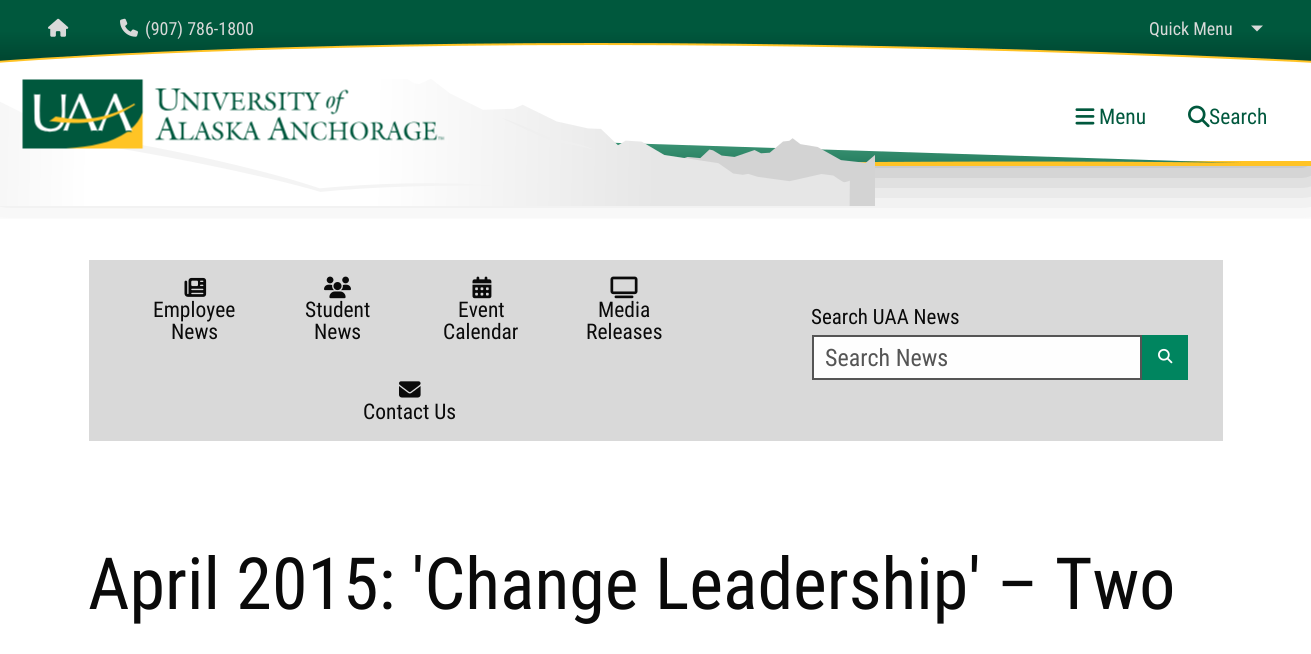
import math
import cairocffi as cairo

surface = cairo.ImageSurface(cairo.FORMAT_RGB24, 1311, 654)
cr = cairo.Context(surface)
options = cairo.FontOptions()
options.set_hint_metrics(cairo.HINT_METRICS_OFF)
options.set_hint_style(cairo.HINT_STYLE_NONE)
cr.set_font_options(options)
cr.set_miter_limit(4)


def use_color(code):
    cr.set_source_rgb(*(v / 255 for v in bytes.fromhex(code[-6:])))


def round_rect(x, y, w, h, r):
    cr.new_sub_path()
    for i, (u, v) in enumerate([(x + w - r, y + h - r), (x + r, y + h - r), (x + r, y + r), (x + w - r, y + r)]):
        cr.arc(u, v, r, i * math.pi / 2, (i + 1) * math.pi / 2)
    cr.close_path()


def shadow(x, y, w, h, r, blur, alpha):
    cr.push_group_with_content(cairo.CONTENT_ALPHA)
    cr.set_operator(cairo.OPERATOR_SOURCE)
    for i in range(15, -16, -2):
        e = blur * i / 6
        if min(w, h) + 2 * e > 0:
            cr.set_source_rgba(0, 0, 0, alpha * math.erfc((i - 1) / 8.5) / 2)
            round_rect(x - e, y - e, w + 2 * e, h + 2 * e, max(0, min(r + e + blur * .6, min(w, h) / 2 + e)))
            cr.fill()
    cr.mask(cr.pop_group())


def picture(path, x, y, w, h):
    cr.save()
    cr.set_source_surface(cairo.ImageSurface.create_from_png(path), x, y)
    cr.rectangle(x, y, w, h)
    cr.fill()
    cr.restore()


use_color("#ffffff")
cr.paint()
use_color("#d9d9d9")
cr.rectangle(89, 260, 1134, 181)
cr.fill()
cr.save()
cr.rectangle(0, 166, 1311, 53)
cr.clip()
use_color("#000000")
shadow(-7, 24, 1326, 149, 0, 30, 0.33)
cr.restore()
use_color("#00583d")
cr.rectangle(0, 0, 1311, 14)
cr.fill()
cr.save()
cr.rectangle(0, 14, 1311, 52)
cr.clip()
use_color("#ffc325")
cr.new_path()
cr.move_to(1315, 12)
cr.line_to(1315, 60)
cr.curve_to(1292, 59, 965, 42, 596, 42)
cr.curve_to(231, 42, 16, 59, -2, 60)
cr.line_to(-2, 12)
cr.line_to(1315, 12)
cr.move_to(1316, 11)
cr.line_to(-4, 11)
cr.line_to(-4, 63)
cr.curve_to(-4, 63, 211, 45, 596, 45)
cr.curve_to(982, 45, 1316, 63, 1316, 63)
cr.close_path()
cr.fill()
gradient = cairo.LinearGradient(656, 61, 656, 11)
gradient.add_color_stop_rgba(0, 0, 0.275, 0.192, 1)
gradient.add_color_stop_rgba(0.6, 0, 0.345, 0.239, 1)
cr.set_source(gradient)
cr.new_path()
cr.move_to(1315, 61)
cr.curve_to(1299, 60, 969, 43, 596, 43)
cr.curve_to(226, 43, 10, 60, -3, 61)
cr.line_to(-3, 12)
cr.line_to(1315, 11)
cr.close_path()
cr.fill()
cr.restore()
picture("img1.png", 48, 18, 21, 19)
picture("img2.png", 120, 18, 18, 19)
cr.select_font_face("Roboto Condensed")
cr.set_font_size(18)
use_color("#d9d9d9")
cr.move_to(145, 35)
cr.show_text("(907) 786-1800")
cr.move_to(1149, 35)
cr.show_text("Quick Menu")
cr.new_path()
cr.move_to(1251, 25.5)
cr.line_to(1263, 25.5)
cr.line_to(1257, 31.5)
cr.close_path()
cr.fill()
use_color("#ffc325")
cr.rectangle(858, 161, 453, 5)
cr.fill()
picture("img5.png", 1075, 108, 20, 17)
cr.set_font_size(21.5)
use_color("#00583d")
cr.move_to(1099, 124)
cr.show_text("Menu")
picture("img6.png", 1188, 105, 22, 23)
cr.move_to(1209, 124)
cr.show_text("Search")
gradient = cairo.LinearGradient(620, 123, 620, 204)
gradient.add_color_stop_rgba(0, 0.306, 0.651, 0.522, 1)
gradient.add_color_stop_rgba(1, 0, 0.345, 0.239, 1)
cr.set_source(gradient)
cr.new_path()
cr.move_to(-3, 123)
cr.line_to(1242, 163)
cr.curve_to(1168, 161, 261, 154, -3, 204)
cr.close_path()
cr.fill()
picture("img3.png", 0, 79, 875, 127)
picture("img4.png", 22, 79, 423, 70)
picture("img7.png", 184, 277, 23, 20)
use_color("#0a0a0a")
cr.move_to(153, 317)
cr.show_text("Employee")
cr.move_to(171, 339)
cr.show_text("News")
picture("img8.png", 324, 276, 27, 23)
cr.move_to(305, 317)
cr.show_text("Student")
cr.move_to(314, 339)
cr.show_text("News")
picture("img9.png", 472, 276, 20, 23)
cr.move_to(458, 317)
cr.show_text("Event")
cr.move_to(443, 339)
cr.show_text("Calendar")
picture("img10.png", 610, 276, 28, 23)
cr.move_to(598, 317)
cr.show_text("Media")
cr.move_to(586, 339)
cr.show_text("Releases")
picture("img11.png", 399, 381, 22, 17)
cr.move_to(363, 419)
cr.show_text("Contact Us")
cr.set_font_size(21)
cr.move_to(811, 324)
cr.show_text("Search UAA News")
use_color("#fefefe")
cr.rectangle(813, 336, 328, 43)
cr.fill_preserve()
use_color("#555555")
cr.stroke()
cr.set_font_size(24)
cr.move_to(825, 366)
cr.show_text("Search News")
use_color("#00855f")
cr.rectangle(1142, 335, 46, 45)
cr.fill()
picture("img12.png", 1158, 348, 15, 16)
cr.set_font_size(72)
use_color("#0a0a0a")
cr.move_to(88, 609)
cr.show_text("April 2015: 'Change Leadership' – Two")
surface.write_to_png("result.png")
